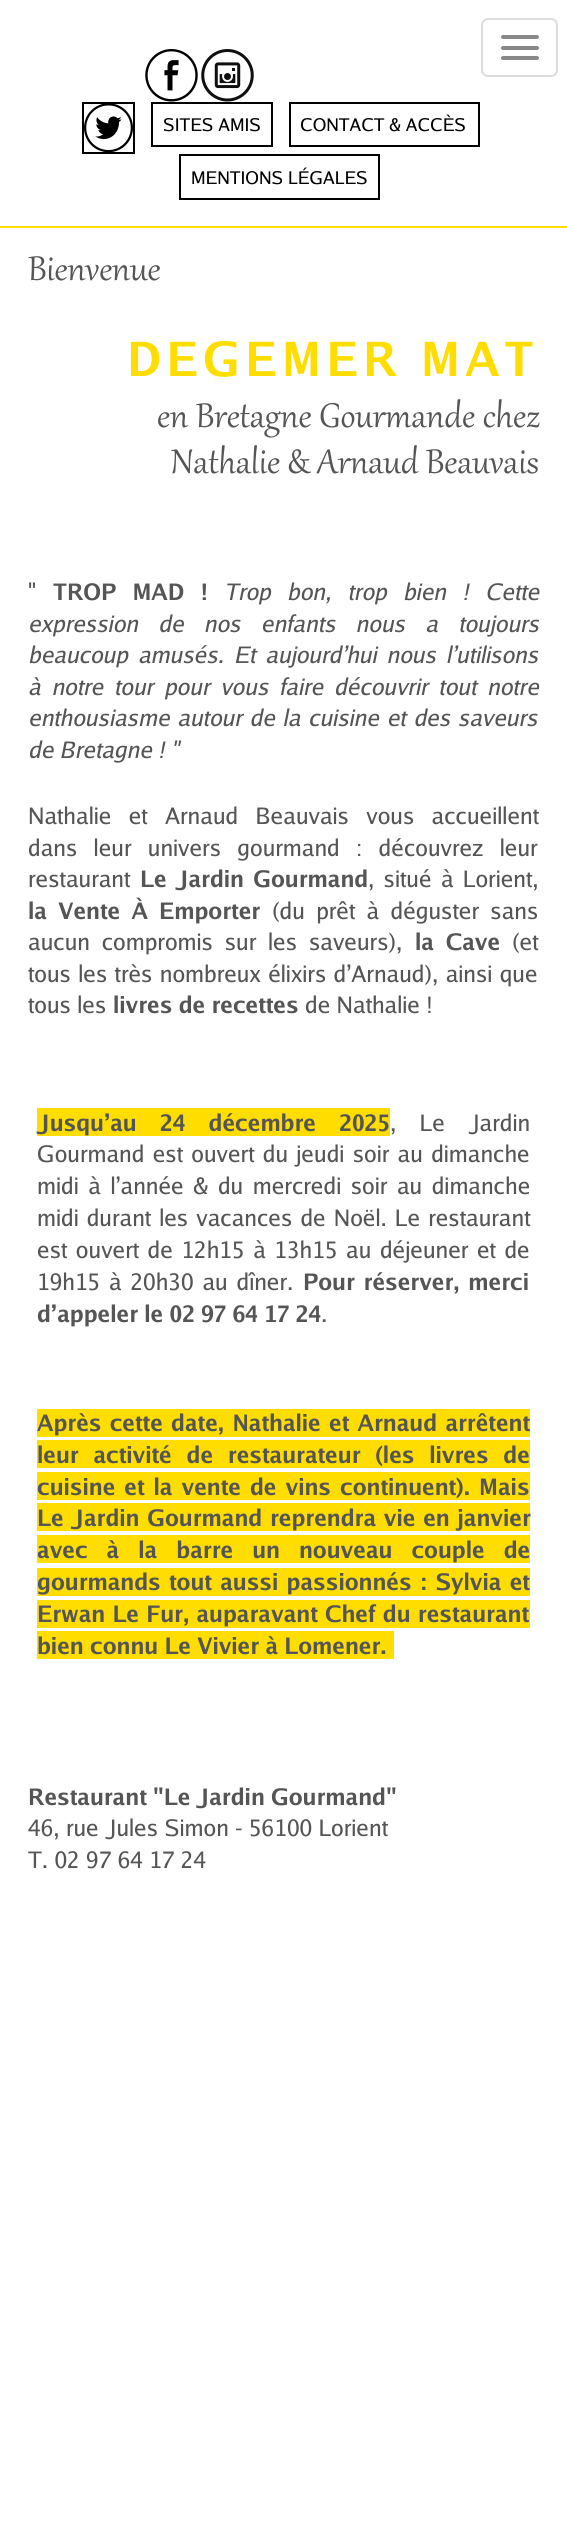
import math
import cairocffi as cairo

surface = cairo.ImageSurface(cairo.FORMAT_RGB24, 567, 2521)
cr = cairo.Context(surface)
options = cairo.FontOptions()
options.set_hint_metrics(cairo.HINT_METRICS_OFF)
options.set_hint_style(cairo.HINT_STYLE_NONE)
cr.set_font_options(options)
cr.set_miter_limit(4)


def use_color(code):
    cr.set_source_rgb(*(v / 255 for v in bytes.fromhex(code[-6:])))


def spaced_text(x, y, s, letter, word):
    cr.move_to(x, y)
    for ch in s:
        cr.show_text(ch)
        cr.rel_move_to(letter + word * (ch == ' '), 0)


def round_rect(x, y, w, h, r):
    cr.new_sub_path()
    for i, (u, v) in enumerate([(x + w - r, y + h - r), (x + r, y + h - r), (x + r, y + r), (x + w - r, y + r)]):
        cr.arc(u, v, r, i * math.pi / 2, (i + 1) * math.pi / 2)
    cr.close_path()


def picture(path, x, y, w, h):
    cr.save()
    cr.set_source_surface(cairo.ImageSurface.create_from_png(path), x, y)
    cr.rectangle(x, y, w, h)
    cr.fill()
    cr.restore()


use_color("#ffffff")
cr.paint()
round_rect(482, 19, 75, 57, 6)
use_color("#dddddd")
cr.stroke()
use_color("#888888")
round_rect(501, 35, 38, 4, 2)
cr.fill()
round_rect(501, 46, 38, 4, 2)
cr.fill()
round_rect(501, 56, 38, 4, 2)
cr.fill()
use_color("#ffdd00")
cr.rectangle(0, 226, 567, 2)
cr.fill()
picture("img1.png", 145, 49, 53, 53)
picture("img2.png", 201, 49, 53, 53)
picture("img3.png", 84, 104, 49, 48)
cr.rectangle(83, 103, 51, 50)
use_color("#000000")
cr.stroke()
cr.rectangle(152, 103, 120, 43)
cr.stroke()
cr.select_font_face("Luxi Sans")
cr.set_font_size(17.5)
cr.move_to(163, 131)
cr.show_text("SITES AMIS")
cr.rectangle(290, 103, 189, 43)
cr.stroke()
cr.move_to(300, 131)
cr.show_text("CONTACT & ACCÈS")
cr.rectangle(180, 155, 199, 44)
cr.stroke()
cr.move_to(191, 184)
cr.show_text("MENTIONS LÉGALES")
cr.select_font_face("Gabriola", cairo.FONT_SLANT_ITALIC)
cr.set_font_size(42)
use_color("#555555")
cr.move_to(28, 280)
cr.show_text("Bienvenue")
cr.select_font_face("Luxi Sans", cairo.FONT_SLANT_NORMAL, cairo.FONT_WEIGHT_BOLD)
cr.set_font_size(47.25)
use_color("#ffdd00")
spaced_text(127, 376, "DEGEMER MAT", 5.25, 0)
cr.select_font_face("Gabriola", cairo.FONT_SLANT_ITALIC)
cr.set_font_size(42)
use_color("#555555")
spaced_text(157, 427, "en Bretagne Gourmande chez", 0, 0.5)
cr.move_to(171, 473)
cr.show_text("Nathalie & Arnaud Beauvais")
cr.select_font_face("Luxi Sans")
cr.set_font_size(22.75)
cr.move_to(28, 600)
cr.show_text("\"")
cr.select_font_face("Luxi Sans", cairo.FONT_SLANT_NORMAL, cairo.FONT_WEIGHT_BOLD)
spaced_text(53, 600, "TROP MAD !", 0, 10)
cr.select_font_face("Luxi Sans", cairo.FONT_SLANT_ITALIC)
spaced_text(224, 600, "Trop bon, trop bien ! Cette", 0, 10)
spaced_text(28, 632, "expression de nos enfants nous a toujours", 0, 14)
spaced_text(28, 663, "beaucoup amusés. Et aujourd’hui nous l’utilisons", 0, 3.75)
spaced_text(28, 695, "à notre tour pour vous faire découvrir tout notre", 0, 4.5)
spaced_text(28, 726, "enthousiasme autour de la cuisine et des saveurs", 0, 1.5)
cr.move_to(28, 758)
cr.show_text("de Bretagne ! \"")
cr.select_font_face("Luxi Sans")
spaced_text(28, 824, "Nathalie et Arnaud Beauvais vous accueillent", 0, 11)
spaced_text(28, 856, "dans leur univers gourmand : découvrez leur", 0, 10)
cr.move_to(28, 887)
cr.show_text("restaurant")
cr.select_font_face("Luxi Sans", cairo.FONT_SLANT_NORMAL, cairo.FONT_WEIGHT_BOLD)
spaced_text(140, 887, "Le Jardin Gourmand", 0, 3)
cr.select_font_face("Luxi Sans")
spaced_text(368, 887, ", situé à Lorient,", 0, 3)
cr.select_font_face("Luxi Sans", cairo.FONT_SLANT_NORMAL, cairo.FONT_WEIGHT_BOLD)
spaced_text(28, 919, "la Vente À Emporter", 0, 5)
cr.select_font_face("Luxi Sans")
spaced_text(272, 919, "(du prêt à déguster sans", 0, 5)
spaced_text(28, 950, "aucun compromis sur les saveurs),", 0, 5.5)
cr.select_font_face("Luxi Sans", cairo.FONT_SLANT_NORMAL, cairo.FONT_WEIGHT_BOLD)
spaced_text(415, 950, "la Cave", 0, 5.5)
cr.select_font_face("Luxi Sans")
cr.move_to(512, 950)
cr.show_text("(et")
spaced_text(28, 982, "tous les très nombreux élixirs d’Arnaud), ainsi que", 0, 1)
cr.move_to(28, 1013)
cr.show_text("tous les")
cr.select_font_face("Luxi Sans", cairo.FONT_SLANT_NORMAL, cairo.FONT_WEIGHT_BOLD)
cr.move_to(113, 1013)
cr.show_text("livres de recettes")
cr.select_font_face("Luxi Sans")
cr.move_to(305, 1013)
cr.show_text("de Nathalie !")
use_color("#ffdd00")
cr.rectangle(37, 1108, 353, 28)
cr.fill()
cr.select_font_face("Luxi Sans", cairo.FONT_SLANT_NORMAL, cairo.FONT_WEIGHT_BOLD)
use_color("#555555")
spaced_text(37, 1131, "Jusqu’au 24 décembre 2025", 0, 17)
cr.select_font_face("Luxi Sans")
spaced_text(390, 1131, ", Le Jardin", 0, 17)
spaced_text(37, 1162, "Gourmand est ouvert du jeudi soir au dimanche", 0, 2)
spaced_text(37, 1194, "midi à l’année & du mercredi soir au dimanche", 0, 3.25)
spaced_text(37, 1226, "midi durant les vacances de Noël. Le restaurant", 0, 1.75)
spaced_text(37, 1258, "est ouvert de 12h15 à 13h15 au déjeuner et de", 0, 2.25)
spaced_text(37, 1290, "19h15 à 20h30 au dîner.", 0, 2.5)
cr.select_font_face("Luxi Sans", cairo.FONT_SLANT_NORMAL, cairo.FONT_WEIGHT_BOLD)
spaced_text(303, 1290, "Pour réserver, merci", 0, 2.5)
cr.move_to(37, 1322)
cr.show_text("d’appeler le 02 97 64 17 24")
cr.select_font_face("Luxi Sans")
cr.move_to(321, 1322)
cr.show_text(".")
use_color("#ffdd00")
cr.rectangle(37, 1409, 493, 28)
cr.fill()
cr.select_font_face("Luxi Sans", cairo.FONT_SLANT_NORMAL, cairo.FONT_WEIGHT_BOLD)
use_color("#555555")
spaced_text(37, 1431, "Après cette date, Nathalie et Arnaud arrêtent", 0, 2)
use_color("#ffdd00")
cr.rectangle(37, 1440, 493, 28)
cr.fill()
use_color("#555555")
spaced_text(37, 1463, "leur activité de restaurateur (les livres de", 0, 8.5)
use_color("#ffdd00")
cr.rectangle(37, 1472, 493, 28)
cr.fill()
use_color("#555555")
spaced_text(37, 1495, "cuisine et la vente de vins continuent). Mais", 0, 2.75)
use_color("#ffdd00")
cr.rectangle(37, 1503, 493, 28)
cr.fill()
use_color("#555555")
spaced_text(37, 1526, "Le Jardin Gourmand reprendra vie en janvier", 0, 1.5)
use_color("#ffdd00")
cr.rectangle(37, 1535, 493, 28)
cr.fill()
use_color("#555555")
spaced_text(37, 1558, "avec à la barre un nouveau couple de", 0, 12.75)
use_color("#ffdd00")
cr.rectangle(37, 1568, 493, 28)
cr.fill()
use_color("#555555")
spaced_text(37, 1590, "gourmands tout aussi passionnés : Sylvia et", 0, 2)
use_color("#ffdd00")
cr.rectangle(37, 1600, 493, 28)
cr.fill()
use_color("#555555")
spaced_text(37, 1622, "Erwan Le Fur, auparavant Chef du restaurant", 0, 1)
use_color("#ffdd00")
cr.rectangle(37, 1631, 357, 28)
cr.fill()
use_color("#555555")
cr.move_to(37, 1654)
cr.show_text("bien connu Le Vivier à Lomener.")
cr.move_to(28, 1805)
cr.show_text("Restaurant \"Le Jardin Gourmand\"")
cr.select_font_face("Luxi Sans")
cr.move_to(28, 1836)
cr.show_text("46, rue Jules Simon - 56100 Lorient")
cr.move_to(28, 1868)
cr.show_text("T. 02 97 64 17 24")
surface.write_to_png("result.png")
